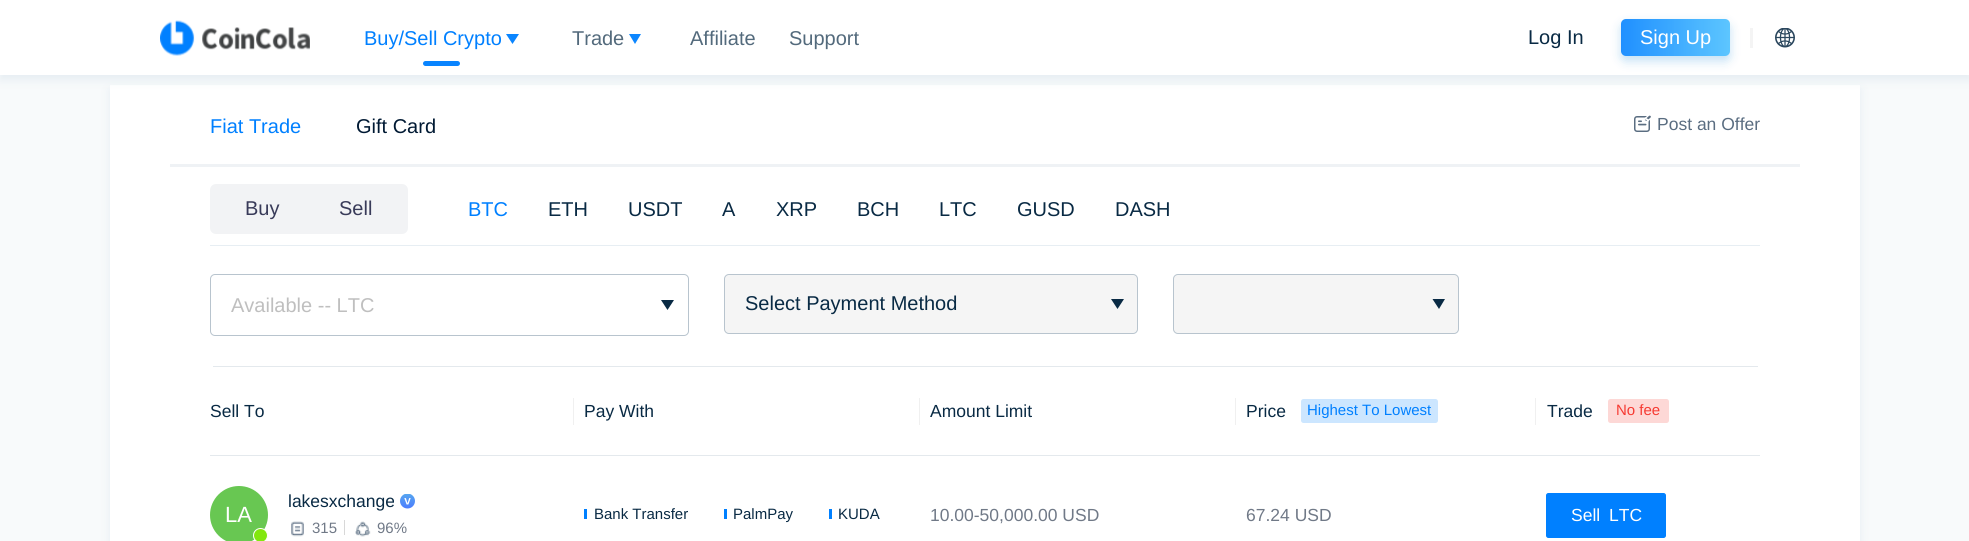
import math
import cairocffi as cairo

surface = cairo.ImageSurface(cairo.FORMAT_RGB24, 1969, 541)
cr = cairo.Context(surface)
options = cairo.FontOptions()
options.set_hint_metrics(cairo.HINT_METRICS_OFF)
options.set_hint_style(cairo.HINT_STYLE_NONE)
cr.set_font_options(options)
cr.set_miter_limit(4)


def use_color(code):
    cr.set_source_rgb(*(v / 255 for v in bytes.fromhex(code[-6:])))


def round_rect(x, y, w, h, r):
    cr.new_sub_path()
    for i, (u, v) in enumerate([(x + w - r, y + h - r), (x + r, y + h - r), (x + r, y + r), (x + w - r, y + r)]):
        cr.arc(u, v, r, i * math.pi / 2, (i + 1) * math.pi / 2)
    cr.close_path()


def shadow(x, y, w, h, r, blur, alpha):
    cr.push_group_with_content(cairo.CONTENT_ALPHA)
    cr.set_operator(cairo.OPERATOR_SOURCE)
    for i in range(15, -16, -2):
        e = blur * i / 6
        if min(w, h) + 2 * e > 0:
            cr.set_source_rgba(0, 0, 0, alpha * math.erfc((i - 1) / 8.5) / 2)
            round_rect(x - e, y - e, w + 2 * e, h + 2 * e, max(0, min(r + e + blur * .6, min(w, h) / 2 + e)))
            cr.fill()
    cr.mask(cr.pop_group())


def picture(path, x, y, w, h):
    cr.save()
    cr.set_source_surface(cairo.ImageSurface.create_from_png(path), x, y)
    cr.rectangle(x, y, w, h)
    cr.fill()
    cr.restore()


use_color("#f8fafb")
cr.paint()
use_color("#e1eaf0")
shadow(110, 90, 1750, 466, 0, 5, 0.8)
use_color("#ffffff")
cr.rectangle(110, 85, 1750, 456)
cr.fill()
use_color("#e1eaf0")
shadow(0, 5, 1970, 75, 0, 5, 0.8)
use_color("#ffffff")
cr.rectangle(0, 0, 1969, 75)
cr.fill()
picture("img1.png", 160, 20, 150, 36)
use_color("#0080ff")
cr.new_path()
cr.move_to(506, 34)
cr.line_to(519, 34)
cr.line_to(512.5, 44)
cr.close_path()
cr.fill()
round_rect(423, 61, 37, 5, 2.5)
cr.fill()
cr.new_path()
cr.move_to(629, 34)
cr.line_to(641, 34)
cr.line_to(635, 44)
cr.close_path()
cr.fill()
use_color("#057fd2")
shadow(1621, 24, 109, 37, 5, 5, 0.27)
gradient = cairo.LinearGradient(1730, 38, 1621, 37)
gradient.add_color_stop_rgba(0, 0.267, 0.741, 1, 1)
gradient.add_color_stop_rgba(1, 0, 0.502, 1, 1)
cr.set_source(gradient)
round_rect(1621, 19, 109, 37, 5)
cr.fill()
use_color("#f2f2f2")
cr.rectangle(1750, 28, 3, 20)
cr.fill()
picture("img2.png", 1775, 28, 20, 20)
gradient = cairo.LinearGradient(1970, 38, 0, 37)
gradient.add_color_stop_rgba(0, 1, 1, 1, 0.15)
gradient.add_color_stop_rgba(1, 1, 1, 1, 0)
cr.set_source(gradient)
cr.rectangle(283, 19, 1512, 47)
cr.fill()
cr.select_font_face("Liberation Sans")
cr.set_font_size(20)
use_color("#0080ff")
cr.move_to(364, 45)
cr.show_text("Buy/Sell Crypto")
use_color("#536a7c")
cr.move_to(572, 45)
cr.show_text("Trade")
cr.move_to(690, 45)
cr.show_text("Affiliate")
cr.move_to(789, 45)
cr.show_text("Support")
use_color("#092a44")
cr.move_to(1528, 44)
cr.show_text("Log In")
use_color("#ffffff")
cr.move_to(1640, 44)
cr.show_text("Sign Up")
use_color("#0080ff")
cr.move_to(210, 133)
cr.show_text("Fiat Trade")
use_color("#001933")
cr.move_to(356, 133)
cr.show_text("Gift Card")
picture("img3.png", 1634, 115, 17, 17)
cr.set_font_size(17.5)
use_color("#5a6d81")
cr.move_to(1657, 130)
cr.show_text("Post an Offer")
use_color("#eff2f5")
cr.rectangle(170, 164, 1630, 3)
cr.fill()
use_color("#e7eef3")
cr.rectangle(210, 245, 1550, 1)
cr.fill()
use_color("#f2f3f5")
round_rect(210, 184, 198, 50, 6)
cr.fill()
cr.set_font_size(20)
use_color("#393b59")
cr.move_to(245, 215)
cr.show_text("Buy")
cr.move_to(339, 215)
cr.show_text("Sell")
use_color("#0080ff")
cr.move_to(468, 216)
cr.show_text("BTC")
use_color("#092a44")
cr.move_to(548, 216)
cr.show_text("ETH")
cr.move_to(628, 216)
cr.show_text("USDT")
cr.move_to(722, 216)
cr.show_text("A")
cr.move_to(776, 216)
cr.show_text("XRP")
cr.move_to(857, 216)
cr.show_text("BCH")
cr.move_to(939, 216)
cr.show_text("LTC")
cr.move_to(1017, 216)
cr.show_text("GUSD")
cr.move_to(1115, 216)
cr.show_text("DASH")
round_rect(210.5, 274.5, 478, 61, 4.5)
use_color("#b8c4ce")
cr.set_line_width(1)
cr.stroke()
use_color("#bfbfbf")
cr.move_to(231, 312)
cr.show_text("Available -- LTC")
use_color("#092a44")
cr.new_path()
cr.move_to(661, 300)
cr.line_to(674, 300)
cr.line_to(667.5, 310)
cr.close_path()
cr.fill()
use_color("#f5f5f5")
round_rect(724.5, 274.5, 413, 59, 4.5)
cr.fill_preserve()
use_color("#b8c4ce")
cr.stroke()
use_color("#092a44")
cr.move_to(745, 310)
cr.show_text("Select Payment Method")
cr.new_path()
cr.move_to(1111, 299)
cr.line_to(1124, 299)
cr.line_to(1117.5, 309)
cr.close_path()
cr.fill()
use_color("#f5f5f5")
round_rect(1173.5, 274.5, 285, 59, 4.5)
cr.fill_preserve()
use_color("#b8c4ce")
cr.stroke()
use_color("#092a44")
cr.new_path()
cr.move_to(1432.5, 299)
cr.line_to(1445, 299)
cr.line_to(1439, 309)
cr.close_path()
cr.fill()
use_color("#e4e9ed")
cr.rectangle(213, 366, 1545, 1)
cr.fill()
cr.rectangle(210, 455, 1550, 1)
cr.fill()
cr.set_font_size(17.5)
use_color("#092a44")
cr.move_to(210, 417)
cr.show_text("Sell To")
use_color("#f0f0f0")
cr.rectangle(573, 398, 1, 27)
cr.fill()
use_color("#092a44")
cr.move_to(584, 417)
cr.show_text("Pay With")
use_color("#f0f0f0")
cr.rectangle(919, 398, 1, 27)
cr.fill()
use_color("#092a44")
cr.move_to(930, 417)
cr.show_text("Amount Limit")
use_color("#f0f0f0")
cr.rectangle(1235, 398, 1, 27)
cr.fill()
use_color("#092a44")
cr.move_to(1246, 417)
cr.show_text("Price")
use_color("#cce6ff")
round_rect(1301, 399, 137, 24, 2.5)
cr.fill()
cr.set_font_size(15)
use_color("#0080ff")
cr.move_to(1307, 415)
cr.show_text("Highest To Lowest")
use_color("#f0f0f0")
cr.rectangle(1535, 398, 1, 27)
cr.fill()
cr.set_font_size(17.5)
use_color("#092a44")
cr.move_to(1547, 417)
cr.show_text("Trade")
use_color("#fdd8d6")
round_rect(1608, 399, 61, 24, 2.5)
cr.fill()
cr.set_font_size(15)
use_color("#f63a32")
cr.move_to(1616, 415)
cr.show_text("No fee")
use_color("#68c752")
cr.new_path()
cr.arc(239, 515, 29, 0, 2 * math.pi)
cr.fill()
cr.set_font_size(22)
use_color("#ffffff")
cr.move_to(225, 522)
cr.show_text("LA")
use_color("#82e70e")
cr.new_path()
cr.arc(260.5, 535.5, 7, 0, 2 * math.pi)
cr.fill_preserve()
use_color("#ffffff")
cr.stroke()
cr.set_font_size(17.5)
use_color("#092a44")
cr.move_to(288, 507)
cr.show_text("lakesxchange")
picture("img4.png", 400, 494, 15, 15)
picture("img5.png", 291, 521, 13, 16)
cr.set_font_size(15)
use_color("#707987")
cr.move_to(312, 533)
cr.show_text("315")
use_color("#d8d8d8")
cr.rectangle(344, 520, 1, 15)
cr.fill()
picture("img6.png", 355, 521, 16, 16)
use_color("#707987")
cr.move_to(377, 533)
cr.show_text("96%")
use_color("#0080ff")
cr.rectangle(584, 509, 3, 10)
cr.fill()
use_color("#092a44")
cr.move_to(594, 519)
cr.show_text("Bank Transfer")
use_color("#0080ff")
cr.rectangle(724, 509, 3, 10)
cr.fill()
use_color("#092a44")
cr.move_to(733, 519)
cr.show_text("PalmPay")
use_color("#0080ff")
cr.rectangle(829, 509, 3, 10)
cr.fill()
use_color("#092a44")
cr.move_to(838, 519)
cr.show_text("KUDA")
cr.set_font_size(17.5)
use_color("#707987")
cr.move_to(930, 521)
cr.show_text("10.00-50,000.00 USD")
cr.move_to(1246, 521)
cr.show_text("67.24 USD")
use_color("#0080ff")
round_rect(1546.5, 493.5, 119, 44, 2)
cr.fill_preserve()
cr.stroke()
use_color("#ffffff")
cr.move_to(1571, 521)
cr.show_text("Sell")
cr.move_to(1609, 521)
cr.show_text("LTC")
surface.write_to_png("result.png")
